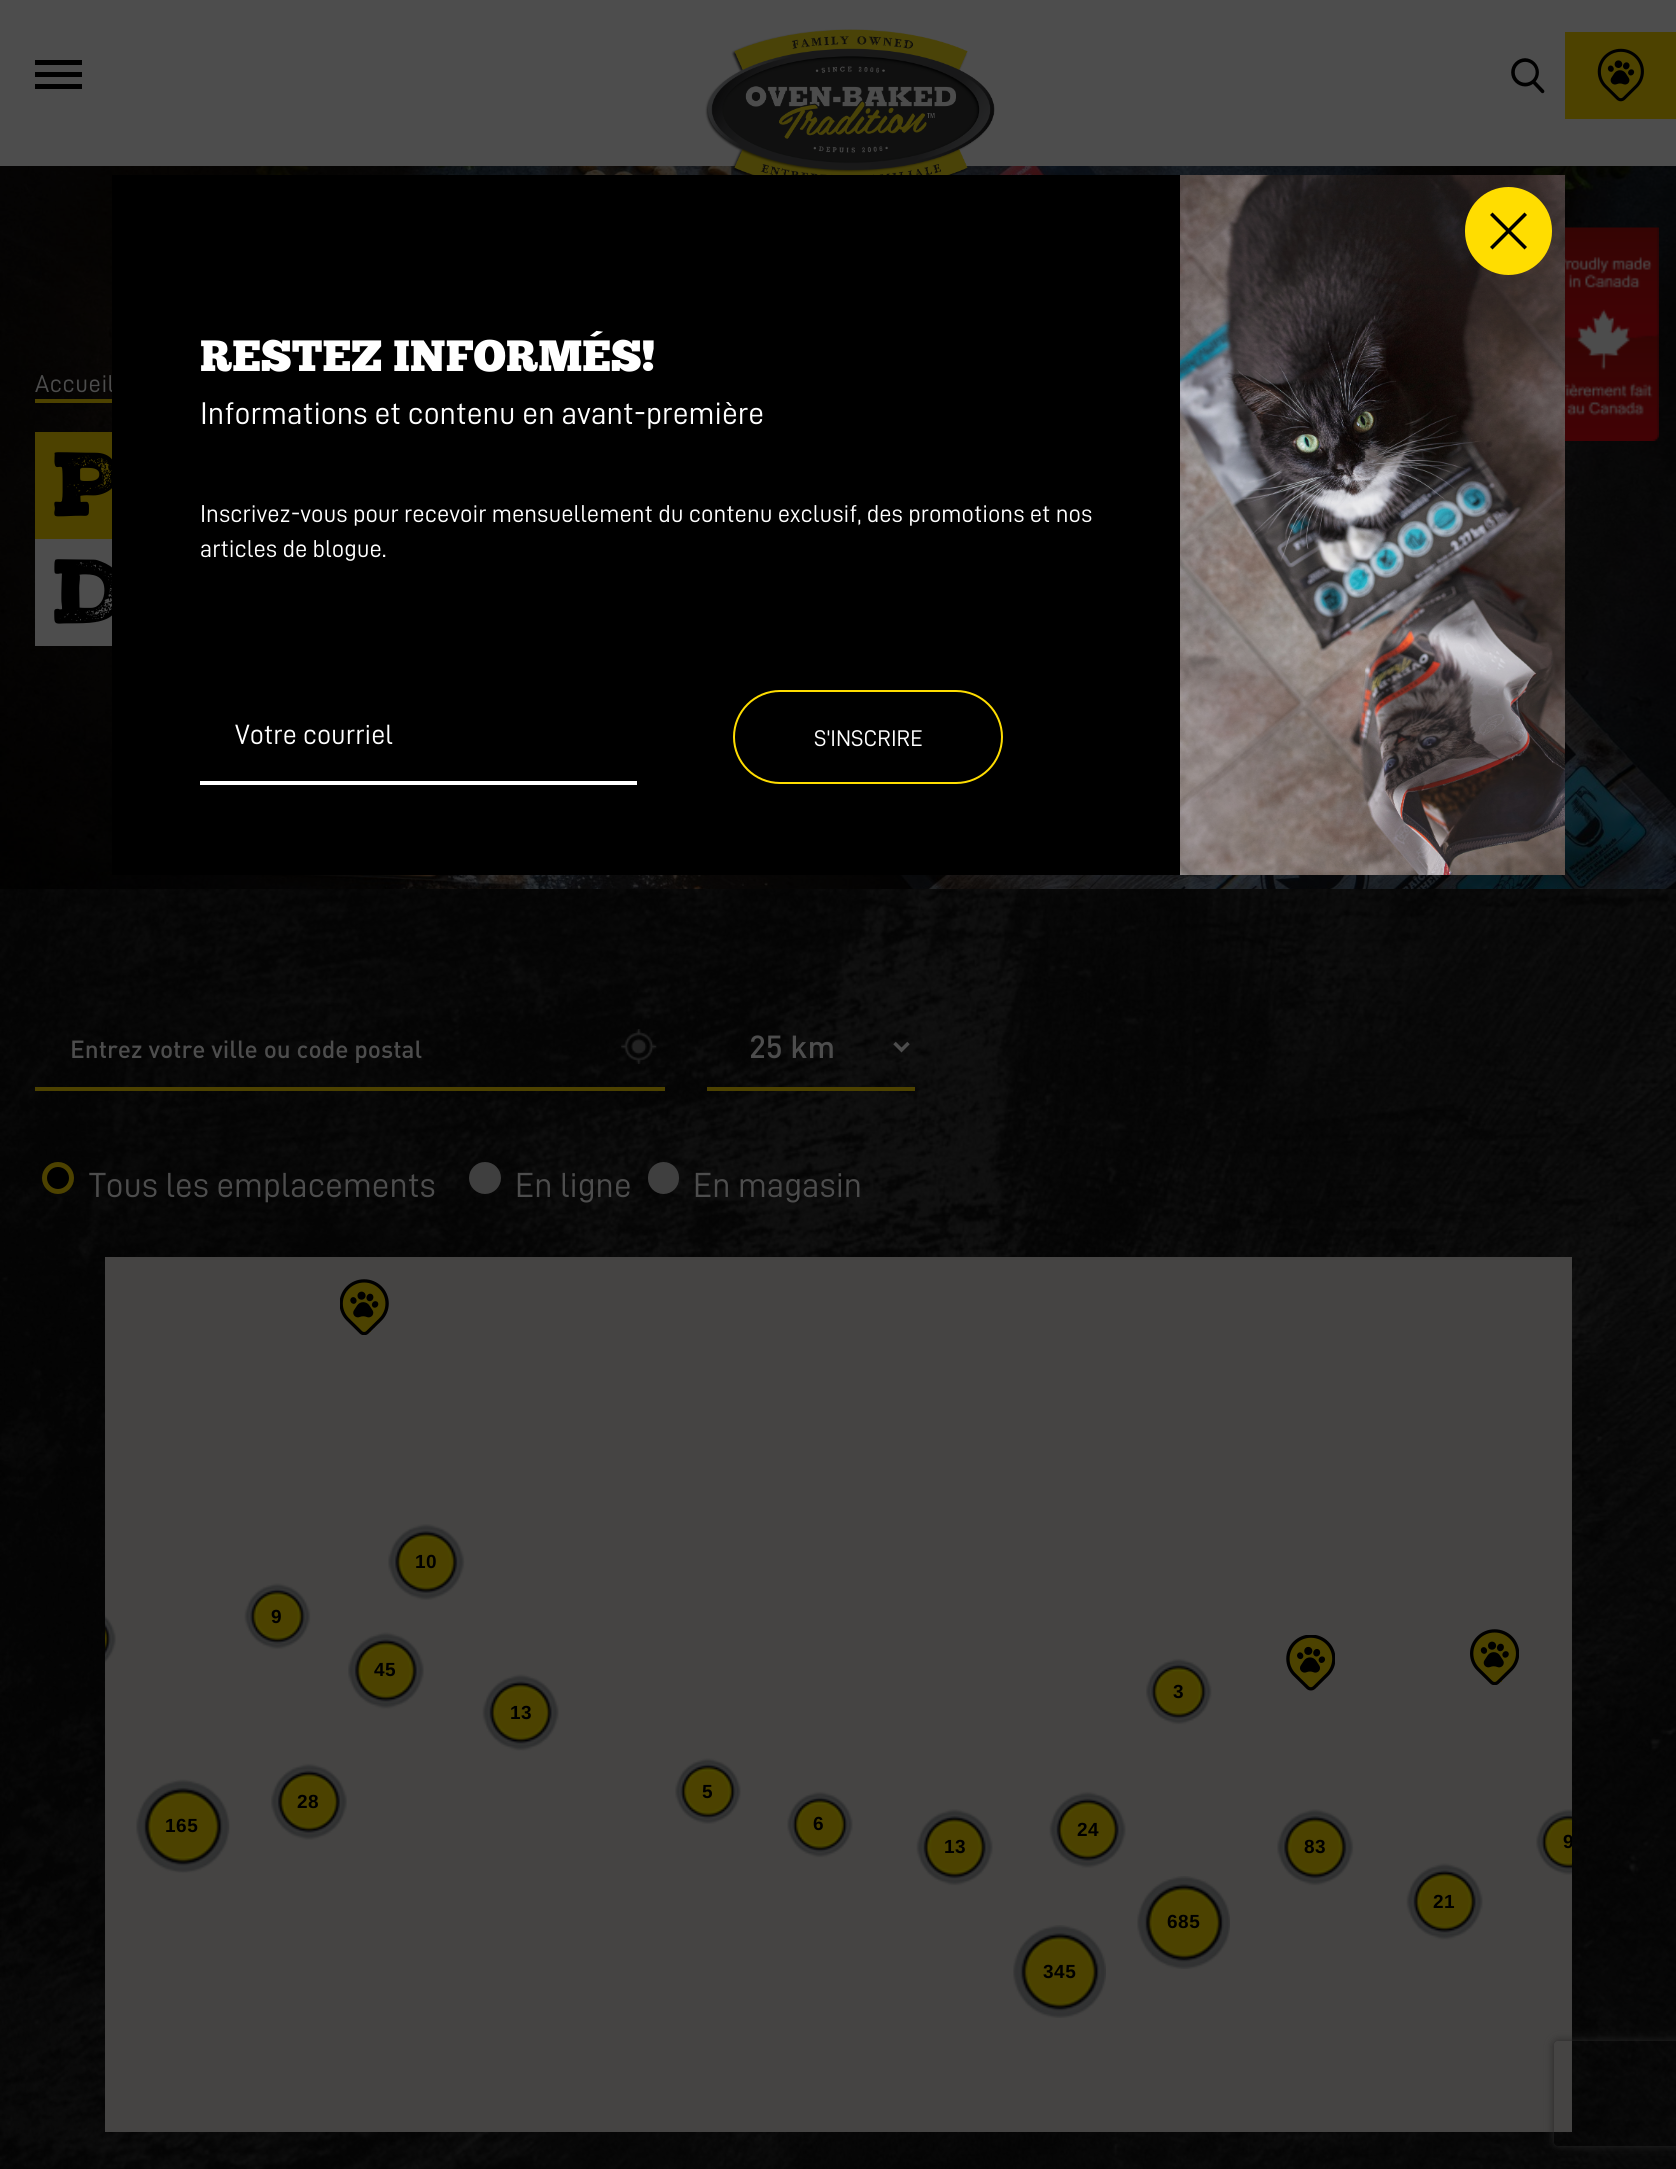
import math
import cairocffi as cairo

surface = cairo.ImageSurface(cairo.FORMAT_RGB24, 1676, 2169)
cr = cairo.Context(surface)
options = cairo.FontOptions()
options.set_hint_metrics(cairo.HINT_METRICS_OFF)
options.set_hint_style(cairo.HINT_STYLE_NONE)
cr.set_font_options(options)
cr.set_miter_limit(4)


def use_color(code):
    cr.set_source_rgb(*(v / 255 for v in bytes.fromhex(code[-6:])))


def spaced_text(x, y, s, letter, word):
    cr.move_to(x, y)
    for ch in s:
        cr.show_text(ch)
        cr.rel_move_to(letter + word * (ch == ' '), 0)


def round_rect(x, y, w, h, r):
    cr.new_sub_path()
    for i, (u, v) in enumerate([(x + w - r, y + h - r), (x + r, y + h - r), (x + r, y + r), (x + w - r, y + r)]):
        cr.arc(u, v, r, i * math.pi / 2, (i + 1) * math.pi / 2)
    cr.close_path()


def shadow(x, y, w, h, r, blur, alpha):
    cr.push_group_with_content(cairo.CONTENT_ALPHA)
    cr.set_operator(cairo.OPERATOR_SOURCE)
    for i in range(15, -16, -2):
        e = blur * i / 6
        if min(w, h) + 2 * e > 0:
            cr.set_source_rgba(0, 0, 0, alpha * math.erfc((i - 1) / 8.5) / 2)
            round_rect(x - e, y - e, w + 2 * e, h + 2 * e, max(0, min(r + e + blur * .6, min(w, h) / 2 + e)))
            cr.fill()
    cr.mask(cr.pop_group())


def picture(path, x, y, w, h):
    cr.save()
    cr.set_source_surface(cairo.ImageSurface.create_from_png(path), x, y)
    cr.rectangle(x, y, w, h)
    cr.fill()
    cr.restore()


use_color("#ffffff")
cr.paint()
picture("img1.png", 0, 889, 1676, 1280)
use_color("#4d4d4d")
cr.rectangle(0, 0, 1676, 166)
cr.fill()
use_color("#000000")
cr.rectangle(35, 72, 47, 5)
cr.fill()
cr.rectangle(35, 60, 47, 5)
cr.fill()
cr.rectangle(35, 84, 47, 5)
cr.fill()
picture("img6.png", 0, 166, 1676, 723)
picture("img2.png", 705, 29, 290, 146)
picture("img3.png", 1511, 58, 34, 36)
use_color("#4d4200")
cr.rectangle(1565, 32, 111, 87)
cr.fill()
picture("img4.png", 1597, 48, 47, 54)
picture("img5.png", 1180, 175, 385, 700)
use_color("#ffdd00")
round_rect(1465, 187, 87, 88, 43.5)
cr.fill()
use_color("#000000")
cr.new_path()
cr.move_to(1524.5, 212.5)
cr.line_to(1527, 215)
cr.line_to(1492.5, 249.5)
cr.line_to(1490, 247)
cr.close_path()
cr.fill()
cr.new_path()
cr.move_to(1490, 215)
cr.line_to(1492.5, 212.5)
cr.line_to(1527, 247)
cr.line_to(1524.5, 249.5)
cr.close_path()
cr.fill()
cr.select_font_face("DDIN")
cr.set_font_size(24.5)
use_color("#4d4d4d")
spaced_text(35, 392, "Accueil", 0.5, 0)
use_color("#000000")
cr.rectangle(112, 175, 1068, 700)
cr.fill()
cr.select_font_face("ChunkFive")
cr.set_font_size(43.75)
use_color("#ffffff")
cr.move_to(200, 371)
cr.show_text("RESTEZ INFORMÉS!")
cr.select_font_face("DDIN")
cr.set_font_size(31.5)
cr.move_to(200, 424)
cr.show_text("Informations et contenu en avant-première")
cr.set_font_size(24.5)
cr.move_to(200, 522)
cr.show_text("Inscrivez-vous pour recevoir mensuellement du contenu exclusif, des promotions et nos")
cr.move_to(200, 557)
cr.show_text("articles de blogue.")
cr.rectangle(200, 781, 437, 4)
cr.fill()
cr.set_font_size(28)
cr.move_to(235, 744)
cr.show_text("Votre courriel")
round_rect(734, 691, 268, 92, 46)
use_color("#ffdd00")
cr.stroke()
cr.set_font_size(22.75)
use_color("#ffffff")
cr.move_to(814, 746)
cr.show_text("S'INSCRIRE")
picture("img7.png", 1565, 227, 94, 214)
use_color("#4d4200")
cr.rectangle(35, 399, 77, 4)
cr.fill()
cr.rectangle(35, 432, 77, 107)
cr.fill()
cr.select_font_face("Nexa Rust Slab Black")
cr.set_font_size(88)
use_color("#000000")
spaced_text(53, 516, "P", 0.5, 0)
use_color("#4d4d4d")
cr.rectangle(35, 539, 77, 107)
cr.fill()
use_color("#000000")
spaced_text(53, 623, "D", 0.5, 0)
use_color("#4d4200")
cr.rectangle(35, 1087, 630, 4)
cr.fill()
cr.select_font_face("DIN Medium")
cr.set_font_size(24.5)
use_color("#4d4d4d")
cr.move_to(70, 1058)
cr.show_text("Entrez votre ville ou code postal")
picture("img8.png", 621, 1029, 36, 35)
use_color("#4d4200")
cr.rectangle(707, 1087, 208, 4)
cr.fill()
cr.new_path()
cr.move_to(894.5, 1043)
cr.line_to(901.5, 1050)
cr.line_to(908.5, 1043)
use_color("#4d4d4d")
cr.set_line_width(3.5)
cr.stroke()
cr.set_font_size(31.5)
cr.move_to(749, 1058)
cr.show_text("25 km")
use_color("#000000")
cr.new_path()
cr.arc(58, 1178, 13.5, 0, 2 * math.pi)
cr.fill_preserve()
use_color("#4d4200")
cr.set_line_width(5)
cr.stroke()
cr.select_font_face("DDIN")
cr.set_font_size(35)
use_color("#4d4d4d")
cr.move_to(89, 1197)
cr.show_text("Tous les emplacements")
use_color("#3f3f3f")
cr.new_path()
cr.arc(485, 1178, 13.5, 0, 2 * math.pi)
cr.fill_preserve()
cr.stroke()
use_color("#4d4d4d")
cr.move_to(515, 1197)
cr.show_text("En ligne")
use_color("#3f3f3f")
round_rect(650.5, 1164.5, 26, 27, 13)
cr.fill_preserve()
cr.stroke()
use_color("#4d4d4d")
cr.move_to(693, 1197)
cr.show_text("En magasin")
use_color("#454443")
cr.rectangle(105, 1257, 1467, 875)
cr.fill()
picture("img9.png", 340, 1279, 49, 56)
picture("img10.png", 1286, 1635, 49, 56)
picture("img11.png", 1470, 1629, 49, 56)
picture("img12.png", 388, 1524, 77, 76)
cr.select_font_face("Liberation Sans", cairo.FONT_SLANT_NORMAL, cairo.FONT_WEIGHT_BOLD)
cr.set_font_size(19)
use_color("#000000")
spaced_text(415, 1568, "10", 0.5, 0)
picture("img13.png", 105, 1615, 11, 48)
picture("img14.png", 244, 1583, 67, 66)
spaced_text(271, 1623, "9", 0.5, 0)
picture("img15.png", 348, 1632, 76, 77)
spaced_text(374, 1676, "45", 0.5, 0)
picture("img16.png", 1146, 1658, 66, 67)
spaced_text(1173, 1698, "3", 0.5, 0)
picture("img17.png", 482, 1674, 77, 77)
spaced_text(510, 1719, "13", 0.5, 0)
picture("img18.png", 675, 1758, 66, 66)
spaced_text(702, 1798, "5", 0.5, 0)
picture("img19.png", 271, 1763, 76, 77)
spaced_text(297, 1808, "28", 0.5, 0)
picture("img20.png", 136, 1779, 94, 94)
spaced_text(165, 1832, "165", 0.5, 0)
picture("img21.png", 787, 1791, 66, 67)
spaced_text(813, 1830, "6", 0.5, 0)
picture("img22.png", 1049, 1791, 77, 77)
spaced_text(1077, 1836, "24", 0.5, 0)
picture("img23.png", 916, 1809, 77, 77)
spaced_text(944, 1853, "13", 0.5, 0)
picture("img24.png", 1277, 1809, 77, 77)
spaced_text(1304, 1853, "83", 0.5, 0)
picture("img25.png", 1536, 1809, 36, 66)
cr.save()
cr.rectangle(105, 1257, 1467, 875)
cr.clip()
spaced_text(1563, 1848, "9", 0.5, 0)
cr.restore()
picture("img17.png", 1406, 1863, 77, 77)
spaced_text(1433, 1908, "21", 0.5, 0)
picture("img26.png", 1137, 1876, 93, 93)
spaced_text(1167, 1928, "685", 0.5, 0)
picture("img27.png", 1013, 1925, 93, 93)
spaced_text(1043, 1978, "345", 0.5, 0)
cr.save()
cr.set_fill_rule(cairo.FILL_RULE_EVEN_ODD)
cr.new_path()
cr.move_to(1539, 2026)
cr.line_to(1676, 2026)
cr.line_to(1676, 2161)
cr.line_to(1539, 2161)
cr.close_path()
cr.move_to(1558, 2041)
cr.line_to(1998, 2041)
cr.curve_to(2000, 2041, 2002, 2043, 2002, 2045)
cr.line_to(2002, 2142)
cr.curve_to(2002, 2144, 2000, 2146, 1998, 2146)
cr.line_to(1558, 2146)
cr.curve_to(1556, 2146, 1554, 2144, 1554, 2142)
cr.line_to(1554, 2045)
cr.curve_to(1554, 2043, 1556, 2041, 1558, 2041)
cr.close_path()
cr.clip()
use_color("#262626")
shadow(1554, 2041, 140, 105, 4, 4.5, 1)
cr.restore()
surface.write_to_png("result.png")
